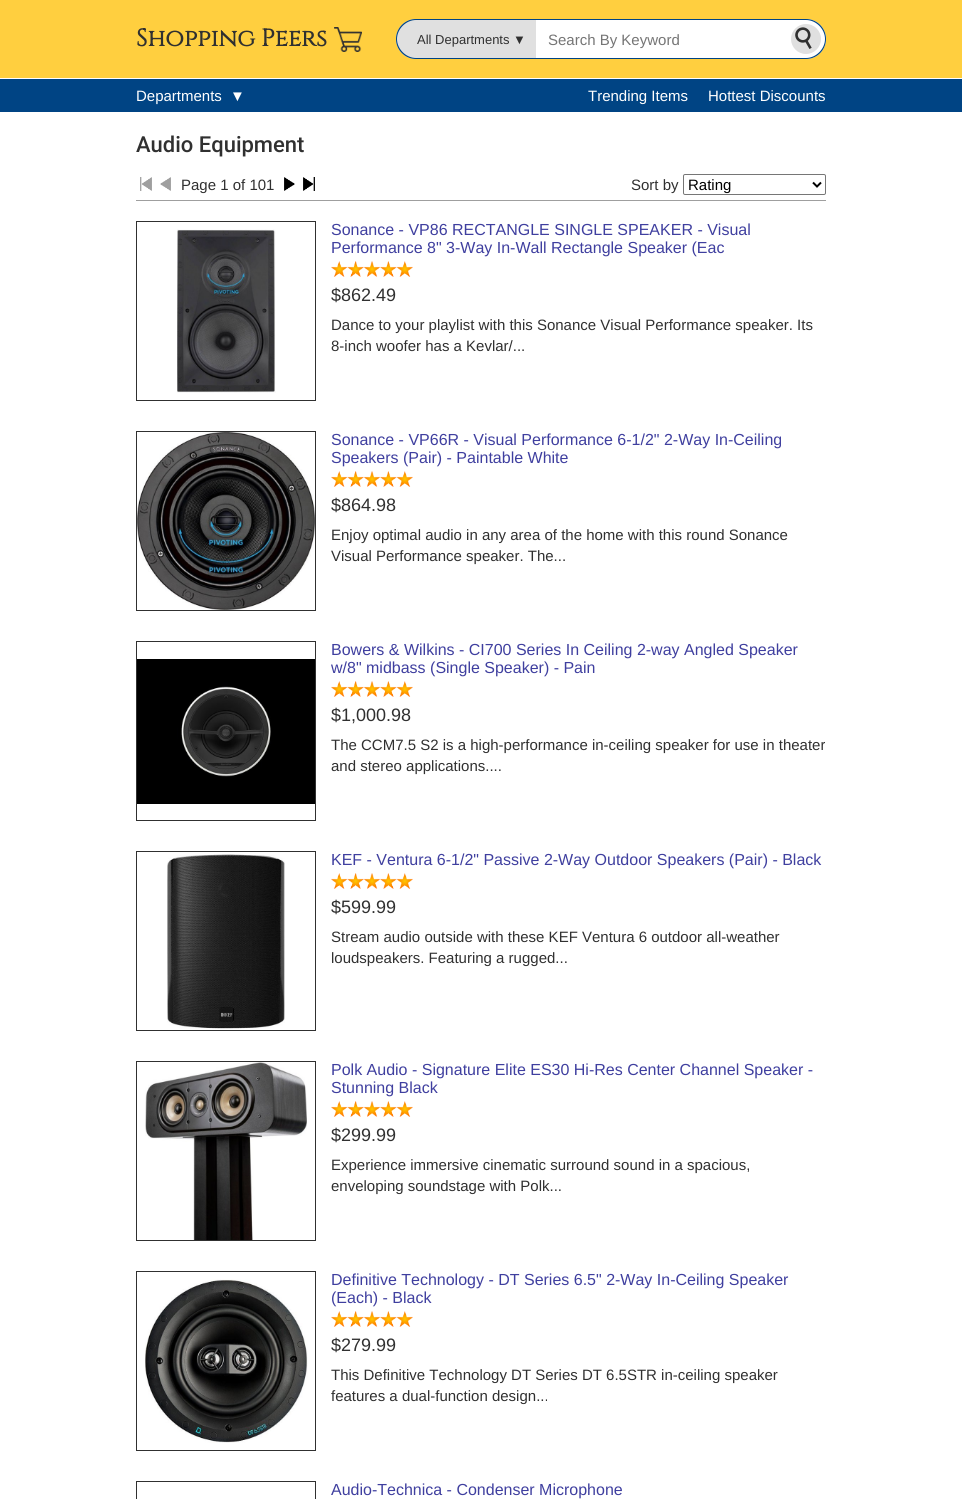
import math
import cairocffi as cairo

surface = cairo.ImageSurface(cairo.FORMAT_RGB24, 962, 1499)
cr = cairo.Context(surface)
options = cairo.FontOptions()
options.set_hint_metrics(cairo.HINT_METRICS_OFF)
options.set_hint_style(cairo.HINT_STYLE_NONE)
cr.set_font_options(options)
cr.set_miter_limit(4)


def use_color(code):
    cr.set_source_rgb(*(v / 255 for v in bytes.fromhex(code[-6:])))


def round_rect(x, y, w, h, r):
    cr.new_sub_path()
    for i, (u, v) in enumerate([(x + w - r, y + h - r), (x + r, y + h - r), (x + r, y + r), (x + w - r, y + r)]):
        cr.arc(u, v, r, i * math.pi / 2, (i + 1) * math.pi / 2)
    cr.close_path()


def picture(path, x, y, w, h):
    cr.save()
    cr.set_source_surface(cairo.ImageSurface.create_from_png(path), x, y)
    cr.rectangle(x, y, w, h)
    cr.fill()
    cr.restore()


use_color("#ffffff")
cr.paint()
use_color("#ffcf3f")
cr.rectangle(0, 0, 962, 78)
cr.fill()
picture("img1.png", 334, 27, 28, 25)
cr.select_font_face("Cinzel", cairo.FONT_SLANT_NORMAL, cairo.FONT_WEIGHT_BOLD)
cr.set_font_size(24)
use_color("#303030")
cr.move_to(136, 46)
cr.show_text("Shopping Peers")
use_color("#e0e0e0")
cr.new_path()
cr.move_to(416, 19)
cr.line_to(536, 19)
cr.line_to(536, 59)
cr.line_to(416, 59)
cr.curve_to(405, 59, 396, 50, 396, 39)
cr.curve_to(396, 28, 405, 19, 416, 19)
cr.close_path()
cr.fill()
use_color("#004484")
cr.set_fill_rule(cairo.FILL_RULE_EVEN_ODD)
cr.new_path()
cr.move_to(416, 19)
cr.line_to(536, 19)
cr.line_to(536, 59)
cr.line_to(416, 59)
cr.curve_to(405, 59, 396, 50, 396, 39)
cr.curve_to(396, 28, 405, 19, 416, 19)
cr.close_path()
cr.move_to(416, 20)
cr.line_to(536, 20)
cr.line_to(536, 58)
cr.line_to(416, 58)
cr.curve_to(406, 58, 397, 49, 397, 39)
cr.curve_to(397, 29, 406, 20, 416, 20)
cr.close_path()
cr.fill()
cr.select_font_face("Liberation Sans")
cr.set_font_size(13)
use_color("#303030")
cr.move_to(417, 44)
cr.show_text("All Departments ▼")
use_color("#ffffff")
cr.rectangle(536, 20, 255, 38)
cr.fill()
use_color("#004484")
cr.rectangle(536, 19, 255, 1)
cr.fill()
cr.rectangle(536, 58, 255, 1)
cr.fill()
cr.set_font_size(15)
use_color("#757575")
cr.move_to(548, 45)
cr.show_text("Search By Keyword")
use_color("#ffffff")
cr.new_path()
cr.move_to(791, 19)
cr.line_to(806, 19)
cr.curve_to(817, 19, 826, 28, 826, 39)
cr.curve_to(826, 50, 817, 59, 806, 59)
cr.line_to(791, 59)
cr.close_path()
cr.fill()
use_color("#004484")
cr.new_path()
cr.move_to(791, 19)
cr.line_to(806, 19)
cr.curve_to(817, 19, 826, 28, 826, 39)
cr.curve_to(826, 50, 817, 59, 806, 59)
cr.line_to(791, 59)
cr.close_path()
cr.move_to(791, 20)
cr.line_to(806, 20)
cr.curve_to(816, 20, 825, 29, 825, 39)
cr.curve_to(825, 49, 816, 58, 806, 58)
cr.line_to(791, 58)
cr.close_path()
cr.fill()
use_color("#e0e0e0")
cr.arc(806, 39, 15, 0, 2 * math.pi)
cr.fill()
cr.select_font_face("DejaVu Sans")
cr.set_font_size(30)
use_color("#303030")
cr.save()
cr.translate(801, 23)
cr.rotate(120 * math.pi / 180)
cr.move_to(0, 0)
cr.show_text("☌")
cr.restore()
use_color("#004484")
cr.rectangle(0, 79, 962, 33)
cr.fill()
cr.select_font_face("Liberation Sans")
cr.set_font_size(15)
use_color("#ffffff")
cr.move_to(136, 101)
cr.show_text("Departments")
cr.move_to(230, 101)
cr.show_text("▼")
cr.move_to(588, 101)
cr.show_text("Trending Items")
cr.move_to(708, 101)
cr.show_text("Hottest Discounts")
cr.select_font_face("Roboto Medium")
cr.set_font_size(22)
use_color("#303030")
cr.move_to(136, 152)
cr.show_text("Audio Equipment")
picture("img2.png", 140, 177, 12, 14)
picture("img3.png", 160, 177, 11, 14)
cr.select_font_face("Liberation Sans")
cr.set_font_size(15)
cr.move_to(181, 190)
cr.show_text("Page 1 of 101")
picture("img4.png", 284, 177, 11, 14)
picture("img5.png", 303, 177, 12, 14)
cr.move_to(631, 190)
cr.show_text("Sort by")
round_rect(683.5, 174.5, 142, 20, 1.5)
use_color("#767676")
cr.set_line_width(1)
cr.stroke()
cr.new_path()
cr.move_to(813, 182.5)
cr.line_to(817, 186.5)
cr.line_to(821, 182.5)
use_color("#000000")
cr.set_line_width(2)
cr.stroke()
cr.move_to(688, 190)
cr.show_text("Rating")
use_color("#9f9f9f")
cr.rectangle(136, 200, 690, 1)
cr.fill()
picture("img6.png", 177, 229, 99, 164)
cr.rectangle(136.5, 221.5, 179, 179)
use_color("#303030")
cr.set_line_width(1)
cr.stroke()
cr.set_font_size(16)
use_color("#3f3f9f")
cr.move_to(331, 235)
cr.show_text("Sonance - VP86 RECTANGLE SINGLE SPEAKER - Visual")
cr.move_to(331, 253)
cr.show_text("Performance 8\" 3-Way In-Wall Rectangle Speaker (Eac")
picture("img7.png", 331, 261, 82, 16)
cr.set_font_size(18)
use_color("#303030")
cr.move_to(331, 301)
cr.show_text("$862.49")
cr.set_font_size(15)
cr.move_to(331, 330)
cr.show_text("Dance to your playlist with this Sonance Visual Performance speaker. Its")
cr.move_to(331, 351)
cr.show_text("8-inch woofer has a Kevlar/...")
picture("img8.png", 137, 432, 178, 178)
cr.rectangle(136.5, 431.5, 179, 179)
cr.stroke()
cr.set_font_size(16)
use_color("#3f3f9f")
cr.move_to(331, 445)
cr.show_text("Sonance - VP66R - Visual Performance 6-1/2\" 2-Way In-Ceiling")
cr.move_to(331, 463)
cr.show_text("Speakers (Pair) - Paintable White")
picture("img7.png", 331, 471, 82, 16)
cr.set_font_size(18)
use_color("#303030")
cr.move_to(331, 511)
cr.show_text("$864.98")
cr.set_font_size(15)
cr.move_to(331, 540)
cr.show_text("Enjoy optimal audio in any area of the home with this round Sonance")
cr.move_to(331, 561)
cr.show_text("Visual Performance speaker. The...")
picture("img9.png", 137, 659, 178, 145)
cr.rectangle(136.5, 641.5, 179, 179)
cr.stroke()
cr.set_font_size(16)
use_color("#3f3f9f")
cr.move_to(331, 655)
cr.show_text("Bowers & Wilkins - CI700 Series In Ceiling 2-way Angled Speaker")
cr.move_to(331, 673)
cr.show_text("w/8\" midbass (Single Speaker) - Pain")
picture("img7.png", 331, 681, 82, 16)
cr.set_font_size(18)
use_color("#303030")
cr.move_to(331, 721)
cr.show_text("$1,000.98")
cr.set_font_size(15)
cr.move_to(331, 750)
cr.show_text("The CCM7.5 S2 is a high-performance in-ceiling speaker for use in theater")
cr.move_to(331, 771)
cr.show_text("and stereo applications....")
picture("img10.png", 167, 854, 118, 175)
cr.rectangle(136.5, 851.5, 179, 179)
cr.stroke()
cr.set_font_size(16)
use_color("#3f3f9f")
cr.move_to(331, 865)
cr.show_text("KEF - Ventura 6-1/2\" Passive 2-Way Outdoor Speakers (Pair) - Black")
picture("img7.png", 331, 873, 82, 16)
cr.set_font_size(18)
use_color("#303030")
cr.move_to(331, 913)
cr.show_text("$599.99")
cr.set_font_size(15)
cr.move_to(331, 942)
cr.show_text("Stream audio outside with these KEF Ventura 6 outdoor all-weather")
cr.move_to(331, 963)
cr.show_text("loudspeakers. Featuring a rugged...")
picture("img11.png", 145, 1062, 162, 178)
cr.rectangle(136.5, 1061.5, 179, 179)
cr.stroke()
cr.set_font_size(16)
use_color("#3f3f9f")
cr.move_to(331, 1075)
cr.show_text("Polk Audio - Signature Elite ES30 Hi-Res Center Channel Speaker -")
cr.move_to(331, 1093)
cr.show_text("Stunning Black")
picture("img7.png", 331, 1101, 82, 16)
cr.set_font_size(18)
use_color("#303030")
cr.move_to(331, 1141)
cr.show_text("$299.99")
cr.set_font_size(15)
cr.move_to(331, 1170)
cr.show_text("Experience immersive cinematic surround sound in a spacious,")
cr.move_to(331, 1191)
cr.show_text("enveloping soundstage with Polk...")
picture("img12.png", 145, 1279, 163, 164)
cr.rectangle(136.5, 1271.5, 179, 179)
cr.stroke()
cr.set_font_size(16)
use_color("#3f3f9f")
cr.move_to(331, 1285)
cr.show_text("Definitive Technology - DT Series 6.5\" 2-Way In-Ceiling Speaker")
cr.move_to(331, 1303)
cr.show_text("(Each) - Black")
picture("img7.png", 331, 1311, 82, 16)
cr.set_font_size(18)
use_color("#303030")
cr.move_to(331, 1351)
cr.show_text("$279.99")
cr.set_font_size(15)
cr.move_to(331, 1380)
cr.show_text("This Definitive Technology DT Series DT 6.5STR in-ceiling speaker")
cr.move_to(331, 1401)
cr.show_text("features a dual-function design...")
cr.rectangle(136.5, 1481.5, 179, 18)
cr.stroke()
cr.set_font_size(16)
use_color("#3f3f9f")
cr.move_to(331, 1495)
cr.show_text("Audio-Technica - Condenser Microphone")
surface.write_to_png("result.png")
